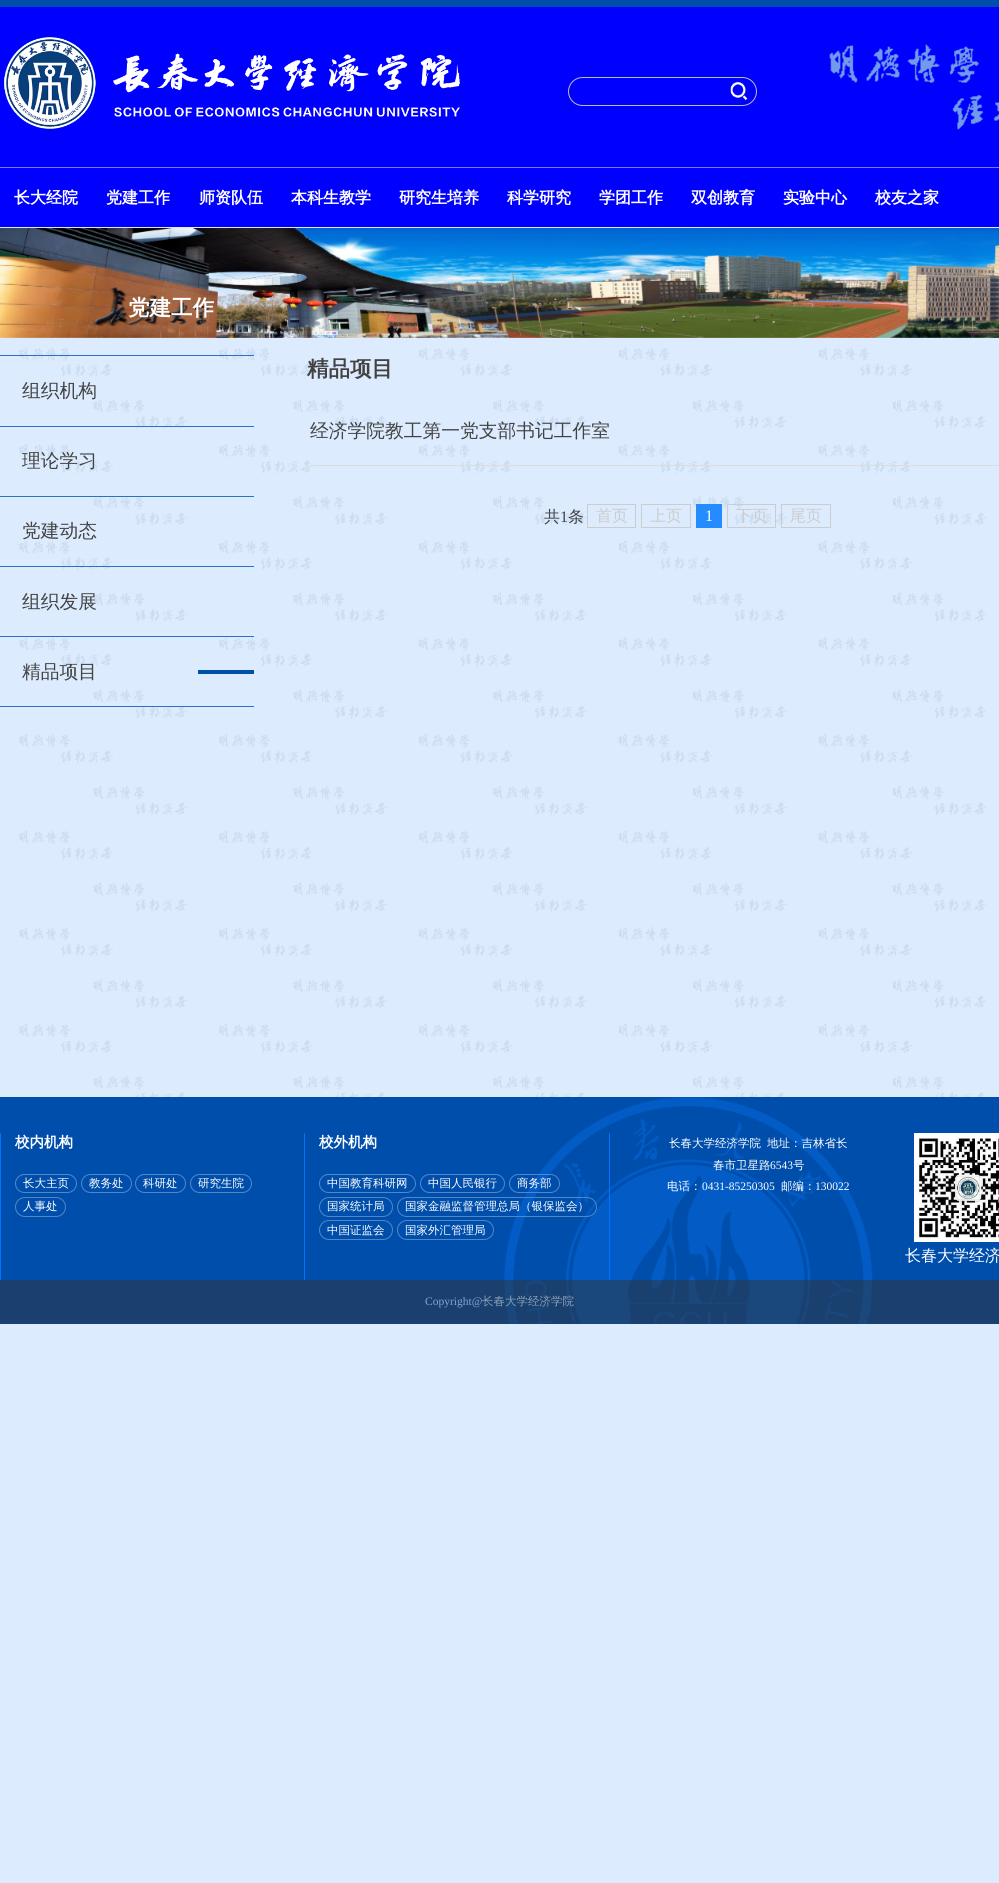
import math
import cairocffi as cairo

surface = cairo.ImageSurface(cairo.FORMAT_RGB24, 999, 1883)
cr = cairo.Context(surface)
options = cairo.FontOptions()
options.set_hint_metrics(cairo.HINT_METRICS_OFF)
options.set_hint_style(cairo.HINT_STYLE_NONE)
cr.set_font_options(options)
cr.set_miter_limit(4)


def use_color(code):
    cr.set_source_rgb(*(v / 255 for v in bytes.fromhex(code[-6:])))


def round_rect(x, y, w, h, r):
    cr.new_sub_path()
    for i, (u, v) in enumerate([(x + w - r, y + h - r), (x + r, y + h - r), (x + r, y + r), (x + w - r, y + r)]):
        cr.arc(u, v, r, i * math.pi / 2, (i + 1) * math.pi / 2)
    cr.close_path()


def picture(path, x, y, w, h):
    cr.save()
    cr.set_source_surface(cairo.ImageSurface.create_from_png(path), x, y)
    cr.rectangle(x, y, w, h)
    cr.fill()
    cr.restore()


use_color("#dcebfe")
cr.paint()
use_color("#0000fe")
cr.rectangle(0, 7, 999, 220)
cr.fill()
use_color("#004eab")
cr.rectangle(0, 0, 999, 7)
cr.fill()
picture("img1.png", 829, 44, 170, 86)
use_color("#7777ff")
cr.rectangle(0, 167, 999, 1)
cr.fill()
picture("img2.png", 4, 37, 456, 92)
round_rect(568.5, 77.5, 188, 28, 14)
use_color("#bfbfbf")
cr.set_line_width(1)
cr.stroke()
picture("img3.png", 730, 82, 18, 19)
cr.select_font_face("WenQuanYi Zen Hei", cairo.FONT_SLANT_NORMAL, cairo.FONT_WEIGHT_BOLD)
cr.set_font_size(16)
use_color("#ffffff")
cr.move_to(14, 203)
cr.show_text("长大经院")
cr.move_to(106, 203)
cr.show_text("党建工作")
cr.move_to(199, 203)
cr.show_text("师资队伍")
cr.move_to(291, 203)
cr.show_text("本科生教学")
cr.move_to(399, 203)
cr.show_text("研究生培养")
cr.move_to(507, 203)
cr.show_text("科学研究")
cr.move_to(599, 203)
cr.show_text("学团工作")
cr.move_to(691, 203)
cr.show_text("双创教育")
cr.move_to(783, 203)
cr.show_text("实验中心")
cr.move_to(875, 203)
cr.show_text("校友之家")
picture("img4.png", 0, 228, 999, 110)
cr.set_font_size(21.5)
cr.move_to(128, 315)
cr.show_text("党建工作")
picture("img5.png", 19, 347, 967, 750)
use_color("#2a71c9")
cr.rectangle(0, 355, 254, 1)
cr.fill()
cr.rectangle(0, 426, 254, 1)
cr.fill()
cr.select_font_face("WenQuanYi Zen Hei Medium")
cr.set_font_size(18.75)
use_color("#424242")
cr.move_to(22, 397)
cr.show_text("组织机构")
use_color("#2a71c9")
cr.rectangle(0, 496, 254, 1)
cr.fill()
use_color("#424242")
cr.move_to(22, 467)
cr.show_text("理论学习")
use_color("#2a71c9")
cr.rectangle(0, 566, 254, 1)
cr.fill()
use_color("#424242")
cr.move_to(22, 537)
cr.show_text("党建动态")
use_color("#2a71c9")
cr.rectangle(0, 636, 254, 1)
cr.fill()
use_color("#424242")
cr.move_to(22, 608)
cr.show_text("组织发展")
use_color("#014eaa")
cr.rectangle(198, 670, 56, 4)
cr.fill()
use_color("#2a71c9")
cr.rectangle(0, 706, 254, 1)
cr.fill()
use_color("#424242")
cr.move_to(22, 678)
cr.show_text("精品项目")
cr.select_font_face("WenQuanYi Zen Hei", cairo.FONT_SLANT_NORMAL, cairo.FONT_WEIGHT_BOLD)
cr.set_font_size(21.5)
cr.move_to(307, 376)
cr.show_text("精品项目")
use_color("#dcdcdc")
cr.rectangle(310, 465, 689, 1)
cr.fill()
cr.select_font_face("WenQuanYi Zen Hei Medium")
cr.set_font_size(18.75)
use_color("#424242")
cr.move_to(310, 437)
cr.show_text("经济学院教工第一党支部书记工作室")
cr.set_font_size(16)
cr.move_to(544, 522)
cr.show_text("共")
cr.select_font_face("Liberation Serif")
cr.move_to(560, 522)
cr.show_text("1")
cr.select_font_face("WenQuanYi Zen Hei Medium")
cr.move_to(568, 522)
cr.show_text("条")
cr.rectangle(587.5, 504.5, 48, 23)
use_color("#cccccc")
cr.stroke()
cr.move_to(596, 521)
cr.show_text("首页")
cr.rectangle(641.5, 504.5, 49, 23)
cr.stroke()
cr.move_to(650, 521)
cr.show_text("上页")
use_color("#258cff")
cr.rectangle(696, 504, 26, 24)
cr.fill()
cr.select_font_face("Liberation Serif")
use_color("#ffffff")
cr.move_to(705, 521)
cr.show_text("1")
cr.rectangle(727.5, 504.5, 48, 23)
use_color("#cccccc")
cr.stroke()
cr.select_font_face("WenQuanYi Zen Hei Medium")
cr.move_to(736, 521)
cr.show_text("下页")
cr.rectangle(781.5, 504.5, 49, 23)
cr.stroke()
cr.move_to(790, 521)
cr.show_text("尾页")
use_color("#004eab")
cr.rectangle(0, 1097, 999, 227)
cr.fill()
picture("img6.png", 504, 1097, 369, 227)
use_color("#0073fd")
cr.rectangle(0, 1133, 1, 147)
cr.fill()
cr.select_font_face("WenQuanYi Zen Hei", cairo.FONT_SLANT_NORMAL, cairo.FONT_WEIGHT_BOLD)
cr.set_font_size(14.5)
use_color("#ffffff")
cr.move_to(15, 1147)
cr.show_text("校内机构")
round_rect(15.5, 1174.5, 61, 18, 9)
use_color("#5287c6")
cr.stroke()
cr.select_font_face("WenQuanYi Zen Hei Medium")
cr.set_font_size(11.5)
use_color("#ffffff")
cr.move_to(23, 1187)
cr.show_text("长大主页")
round_rect(81.5, 1174.5, 50, 18, 9)
use_color("#5287c6")
cr.stroke()
use_color("#ffffff")
cr.move_to(89, 1187)
cr.show_text("教务处")
round_rect(135.5, 1174.5, 50, 18, 9)
use_color("#5287c6")
cr.stroke()
use_color("#ffffff")
cr.move_to(143, 1187)
cr.show_text("科研处")
round_rect(190.5, 1174.5, 61, 18, 9)
use_color("#5287c6")
cr.stroke()
use_color("#ffffff")
cr.move_to(198, 1187)
cr.show_text("研究生院")
round_rect(15.5, 1197.5, 50, 19, 9.5)
use_color("#5287c6")
cr.stroke()
use_color("#ffffff")
cr.move_to(23, 1210)
cr.show_text("人事处")
use_color("#0073fd")
cr.rectangle(304, 1133, 1, 147)
cr.fill()
cr.select_font_face("WenQuanYi Zen Hei", cairo.FONT_SLANT_NORMAL, cairo.FONT_WEIGHT_BOLD)
cr.set_font_size(14.5)
use_color("#ffffff")
cr.move_to(319, 1147)
cr.show_text("校外机构")
round_rect(319.5, 1174.5, 96, 18, 9)
use_color("#5287c6")
cr.stroke()
cr.select_font_face("WenQuanYi Zen Hei Medium")
cr.set_font_size(11.5)
use_color("#ffffff")
cr.move_to(327, 1187)
cr.show_text("中国教育科研网")
round_rect(420.5, 1174.5, 84, 18, 9)
use_color("#5287c6")
cr.stroke()
use_color("#ffffff")
cr.move_to(428, 1187)
cr.show_text("中国人民银行")
round_rect(509.5, 1174.5, 50, 18, 9)
use_color("#5287c6")
cr.stroke()
use_color("#ffffff")
cr.move_to(517, 1187)
cr.show_text("商务部")
round_rect(319.5, 1197.5, 73, 19, 9.5)
use_color("#5287c6")
cr.stroke()
use_color("#ffffff")
cr.move_to(327, 1210)
cr.show_text("国家统计局")
round_rect(397.5, 1197.5, 199, 19, 9.5)
use_color("#5287c6")
cr.stroke()
use_color("#ffffff")
cr.move_to(405, 1210)
cr.show_text("国家金融监督管理总局（银保监会）")
round_rect(319.5, 1220.5, 73, 19, 9.5)
use_color("#5287c6")
cr.stroke()
use_color("#ffffff")
cr.move_to(327, 1234)
cr.show_text("中国证监会")
round_rect(397.5, 1220.5, 96, 19, 9.5)
use_color("#5287c6")
cr.stroke()
use_color("#ffffff")
cr.move_to(405, 1234)
cr.show_text("国家外汇管理局")
use_color("#0073fd")
cr.rectangle(609, 1133, 1, 147)
cr.fill()
use_color("#ffffff")
cr.move_to(669, 1147)
cr.show_text("长春大学经济学院")
cr.move_to(767, 1147)
cr.show_text("地址：吉林省长")
cr.move_to(713, 1169)
cr.show_text("春市卫星路")
cr.select_font_face("Liberation Serif")
cr.move_to(770, 1169)
cr.show_text("6543")
cr.select_font_face("WenQuanYi Zen Hei Medium")
cr.move_to(793, 1169)
cr.show_text("号")
cr.move_to(667, 1190)
cr.show_text("电话：")
cr.select_font_face("Liberation Serif")
cr.move_to(702, 1190)
cr.show_text("0431-85250305")
cr.select_font_face("WenQuanYi Zen Hei Medium")
cr.move_to(781, 1190)
cr.show_text("邮编：")
cr.select_font_face("Liberation Serif")
cr.move_to(815, 1190)
cr.show_text("130022")
picture("img7.png", 914, 1133, 85, 109)
cr.select_font_face("WenQuanYi Zen Hei Medium")
cr.set_font_size(16)
cr.move_to(905, 1261)
cr.show_text("长春大学经济")
cr.set_source_rgba(0.2, 0.2, 0.2, 0.5)
cr.rectangle(0, 1280, 999, 44)
cr.fill()
cr.select_font_face("Liberation Serif")
cr.set_font_size(11.5)
use_color("#80a7d5")
cr.move_to(425, 1305)
cr.show_text("Copyright@")
cr.select_font_face("WenQuanYi Zen Hei Medium")
use_color("#8ca0b8")
cr.move_to(482, 1305)
cr.show_text("长春大学经济学院")
surface.write_to_png("result.png")
